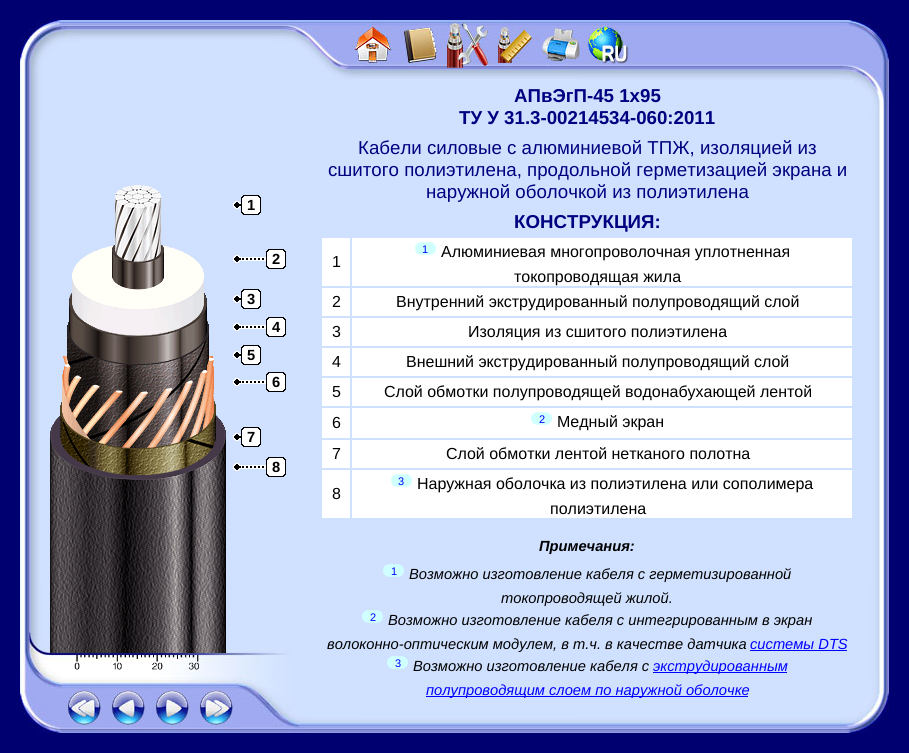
import math
import cairocffi as cairo

surface = cairo.ImageSurface(cairo.FORMAT_RGB24, 909, 753)
cr = cairo.Context(surface)
options = cairo.FontOptions()
options.set_hint_metrics(cairo.HINT_METRICS_OFF)
options.set_hint_style(cairo.HINT_STYLE_NONE)
cr.set_font_options(options)
cr.set_miter_limit(4)


def use_color(code):
    cr.set_source_rgb(*(v / 255 for v in bytes.fromhex(code[-6:])))


def picture(path, x, y, w, h):
    cr.save()
    cr.set_source_surface(cairo.ImageSurface.create_from_png(path), x, y)
    cr.rectangle(x, y, w, h)
    cr.fill()
    cr.restore()


use_color("#000070")
cr.paint()
picture("img1.png", 20, 20, 339, 100)
use_color("#d0e1ff")
cr.rectangle(359, 79, 219, 1)
cr.fill()
picture("img2.png", 359, 20, 219, 59)
picture("img3.png", 578, 20, 311, 100)
cr.rectangle(40, 120, 260, 463)
cr.fill()
picture("img4.png", 20, 120, 20, 463)
cr.rectangle(854, 120, 20, 463)
cr.fill()
picture("img5.png", 874, 120, 15, 463)
picture("img6.png", 20, 583, 339, 150)
cr.rectangle(359, 702, 219, 17)
cr.fill()
picture("img7.png", 359, 719, 219, 14)
picture("img8.png", 578, 583, 311, 150)
picture("img9.png", 349, 20, 47, 48)
picture("img10.png", 404, 27, 39, 41)
picture("img11.png", 443, 20, 47, 48)
picture("img12.png", 498, 20, 39, 48)
picture("img13.png", 537, 28, 47, 40)
picture("img14.png", 584, 20, 47, 48)
picture("img15.png", 132, 185, 13, 1)
picture("img16.png", 121, 186, 33, 3)
picture("img17.png", 121, 189, 35, 1)
picture("img18.png", 50, 190, 176, 463)
picture("img19.png", 233, 203, 1, 4)
picture("img20.png", 234, 201, 7, 8)
picture("img21.png", 241, 195, 20, 20)
cr.select_font_face("Liberation Sans", cairo.FONT_SLANT_NORMAL, cairo.FONT_WEIGHT_BOLD)
cr.set_font_size(14.7)
use_color("#000000")
cr.move_to(247, 210)
cr.show_text("1")
picture("img22.png", 233, 257, 33, 4)
picture("img20.png", 234, 255, 7, 8)
picture("img21.png", 266, 249, 20, 20)
cr.move_to(272, 264)
cr.show_text("2")
picture("img19.png", 233, 297, 1, 4)
picture("img20.png", 234, 295, 7, 8)
picture("img21.png", 241, 289, 20, 20)
cr.move_to(247, 304)
cr.show_text("3")
picture("img22.png", 233, 325, 33, 4)
picture("img20.png", 234, 323, 7, 8)
picture("img21.png", 266, 317, 20, 20)
cr.move_to(272, 332)
cr.show_text("4")
picture("img19.png", 233, 353, 1, 4)
picture("img20.png", 234, 351, 7, 8)
picture("img21.png", 241, 345, 20, 20)
cr.move_to(247, 360)
cr.show_text("5")
picture("img22.png", 233, 380, 33, 4)
picture("img20.png", 234, 378, 7, 8)
picture("img21.png", 266, 372, 20, 20)
cr.move_to(272, 387)
cr.show_text("6")
picture("img19.png", 233, 435, 1, 4)
picture("img20.png", 234, 433, 7, 8)
picture("img21.png", 241, 427, 20, 20)
cr.move_to(247, 442)
cr.show_text("7")
picture("img22.png", 233, 465, 33, 4)
picture("img20.png", 234, 463, 7, 8)
picture("img21.png", 266, 457, 20, 20)
cr.move_to(272, 472)
cr.show_text("8")
picture("img23.png", 74, 655, 125, 15)
picture("img24.png", 62, 683, 44, 50)
picture("img25.png", 106, 683, 44, 50)
picture("img26.png", 150, 683, 44, 50)
picture("img27.png", 194, 683, 44, 50)
use_color("#d0e1ff")
cr.rectangle(300, 80, 554, 622)
cr.fill()
cr.set_font_size(18.7)
use_color("#000080")
cr.move_to(514, 102)
cr.show_text("АПвЭгП-45 1x95")
cr.move_to(459, 124)
cr.show_text("ТУ У 31.3-00214534-060:2011")
cr.select_font_face("Liberation Sans")
cr.move_to(358, 154)
cr.show_text("Кабели силовые с алюминиевой ТПЖ, изоляцией из")
cr.move_to(328, 176)
cr.show_text("сшитого полиэтилена, продольной герметизацией экрана и")
cr.move_to(426, 198)
cr.show_text("наружной оболочкой из полиэтилена")
cr.select_font_face("Liberation Sans", cairo.FONT_SLANT_NORMAL, cairo.FONT_WEIGHT_BOLD)
cr.move_to(514, 228)
cr.show_text("КОНСТРУКЦИЯ:")
use_color("#ffffff")
cr.rectangle(322, 238, 28, 48)
cr.fill()
cr.select_font_face("Liberation Sans")
cr.set_font_size(16)
use_color("#000000")
cr.move_to(332, 267)
cr.show_text("1")
use_color("#ffffff")
cr.rectangle(352, 238, 500, 48)
cr.fill()
picture("img28.png", 415, 242, 21, 13)
cr.set_font_size(11)
use_color("#0000ff")
cr.move_to(422, 253)
cr.show_text("1")
cr.set_font_size(16)
use_color("#000000")
cr.move_to(441, 257)
cr.show_text("Алюминиевая многопроволочная уплотненная")
cr.move_to(514, 282)
cr.show_text("токопроводящая жила")
use_color("#ffffff")
cr.rectangle(322, 288, 28, 28)
cr.fill()
use_color("#000000")
cr.move_to(332, 307)
cr.show_text("2")
use_color("#ffffff")
cr.rectangle(352, 288, 500, 28)
cr.fill()
use_color("#000000")
cr.move_to(396, 307)
cr.show_text("Внутренний экструдированный полупроводящий слой")
use_color("#ffffff")
cr.rectangle(322, 318, 28, 28)
cr.fill()
use_color("#000000")
cr.move_to(332, 337)
cr.show_text("3")
use_color("#ffffff")
cr.rectangle(352, 318, 500, 28)
cr.fill()
use_color("#000000")
cr.move_to(468, 337)
cr.show_text("Изоляция из сшитого полиэтилена")
use_color("#ffffff")
cr.rectangle(322, 348, 28, 28)
cr.fill()
use_color("#000000")
cr.move_to(332, 367)
cr.show_text("4")
use_color("#ffffff")
cr.rectangle(352, 348, 500, 28)
cr.fill()
use_color("#000000")
cr.move_to(406, 367)
cr.show_text("Внешний экструдированный полупроводящий слой")
use_color("#ffffff")
cr.rectangle(322, 378, 28, 28)
cr.fill()
use_color("#000000")
cr.move_to(332, 397)
cr.show_text("5")
use_color("#ffffff")
cr.rectangle(352, 378, 500, 28)
cr.fill()
use_color("#000000")
cr.move_to(384, 397)
cr.show_text("Слой обмотки полупроводящей водонабухающей лентой")
use_color("#ffffff")
cr.rectangle(322, 408, 28, 30)
cr.fill()
use_color("#000000")
cr.move_to(332, 428)
cr.show_text("6")
use_color("#ffffff")
cr.rectangle(352, 408, 500, 30)
cr.fill()
picture("img28.png", 531, 412, 21, 13)
cr.set_font_size(11)
use_color("#0000ff")
cr.move_to(539, 423)
cr.show_text("2")
cr.set_font_size(16)
use_color("#000000")
cr.move_to(557, 427)
cr.show_text("Медный экран")
use_color("#ffffff")
cr.rectangle(322, 440, 28, 28)
cr.fill()
use_color("#000000")
cr.move_to(332, 459)
cr.show_text("7")
use_color("#ffffff")
cr.rectangle(352, 440, 500, 28)
cr.fill()
use_color("#000000")
cr.move_to(446, 459)
cr.show_text("Слой обмотки лентой нетканого полотна")
use_color("#ffffff")
cr.rectangle(322, 470, 28, 48)
cr.fill()
use_color("#000000")
cr.move_to(332, 499)
cr.show_text("8")
use_color("#ffffff")
cr.rectangle(352, 470, 500, 48)
cr.fill()
picture("img28.png", 391, 474, 21, 13)
cr.set_font_size(11)
use_color("#0000ff")
cr.move_to(398, 485)
cr.show_text("3")
cr.set_font_size(16)
use_color("#000000")
cr.move_to(417, 489)
cr.show_text("Наружная оболочка из полиэтилена или сополимера")
cr.move_to(550, 514)
cr.show_text("полиэтилена")
cr.select_font_face("Liberation Sans", cairo.FONT_SLANT_ITALIC, cairo.FONT_WEIGHT_BOLD)
cr.set_font_size(14.7)
cr.move_to(539, 551)
cr.show_text("Примечания:")
picture("img29.png", 383, 564, 21, 13)
cr.select_font_face("Liberation Sans")
cr.set_font_size(11)
use_color("#0000ff")
cr.move_to(391, 575)
cr.show_text("1")
cr.select_font_face("Liberation Sans", cairo.FONT_SLANT_ITALIC)
cr.set_font_size(14.7)
use_color("#000000")
cr.move_to(409, 579)
cr.show_text("Возможно изготовление кабеля с герметизированной")
cr.move_to(501, 603)
cr.show_text("токопроводящей жилой.")
picture("img29.png", 362, 610, 21, 13)
cr.select_font_face("Liberation Sans")
cr.set_font_size(11)
use_color("#0000ff")
cr.move_to(370, 621)
cr.show_text("2")
cr.select_font_face("Liberation Sans", cairo.FONT_SLANT_ITALIC)
cr.set_font_size(14.7)
use_color("#000000")
cr.move_to(388, 625)
cr.show_text("Возможно изготовление кабеля с интегрированным в экран")
cr.move_to(327, 649)
cr.show_text("волоконно-оптическим модулем, в т.ч. в качестве датчика")
use_color("#0000ff")
cr.move_to(750, 649)
cr.show_text("системы DTS")
cr.rectangle(750, 650, 97, 1)
cr.fill()
picture("img29.png", 387, 656, 21, 13)
cr.select_font_face("Liberation Sans")
cr.set_font_size(11)
cr.move_to(395, 667)
cr.show_text("3")
cr.select_font_face("Liberation Sans", cairo.FONT_SLANT_ITALIC)
cr.set_font_size(14.7)
use_color("#000000")
cr.move_to(413, 671)
cr.show_text("Возможно изготовление кабеля с")
use_color("#0000ff")
cr.rectangle(653, 672, 134, 1)
cr.fill()
cr.move_to(653, 671)
cr.show_text("экструдированным")
cr.rectangle(426, 696, 322, 1)
cr.fill()
cr.move_to(426, 695)
cr.show_text("полупроводящим слоем по наружной оболочке")
surface.write_to_png("result.png")
